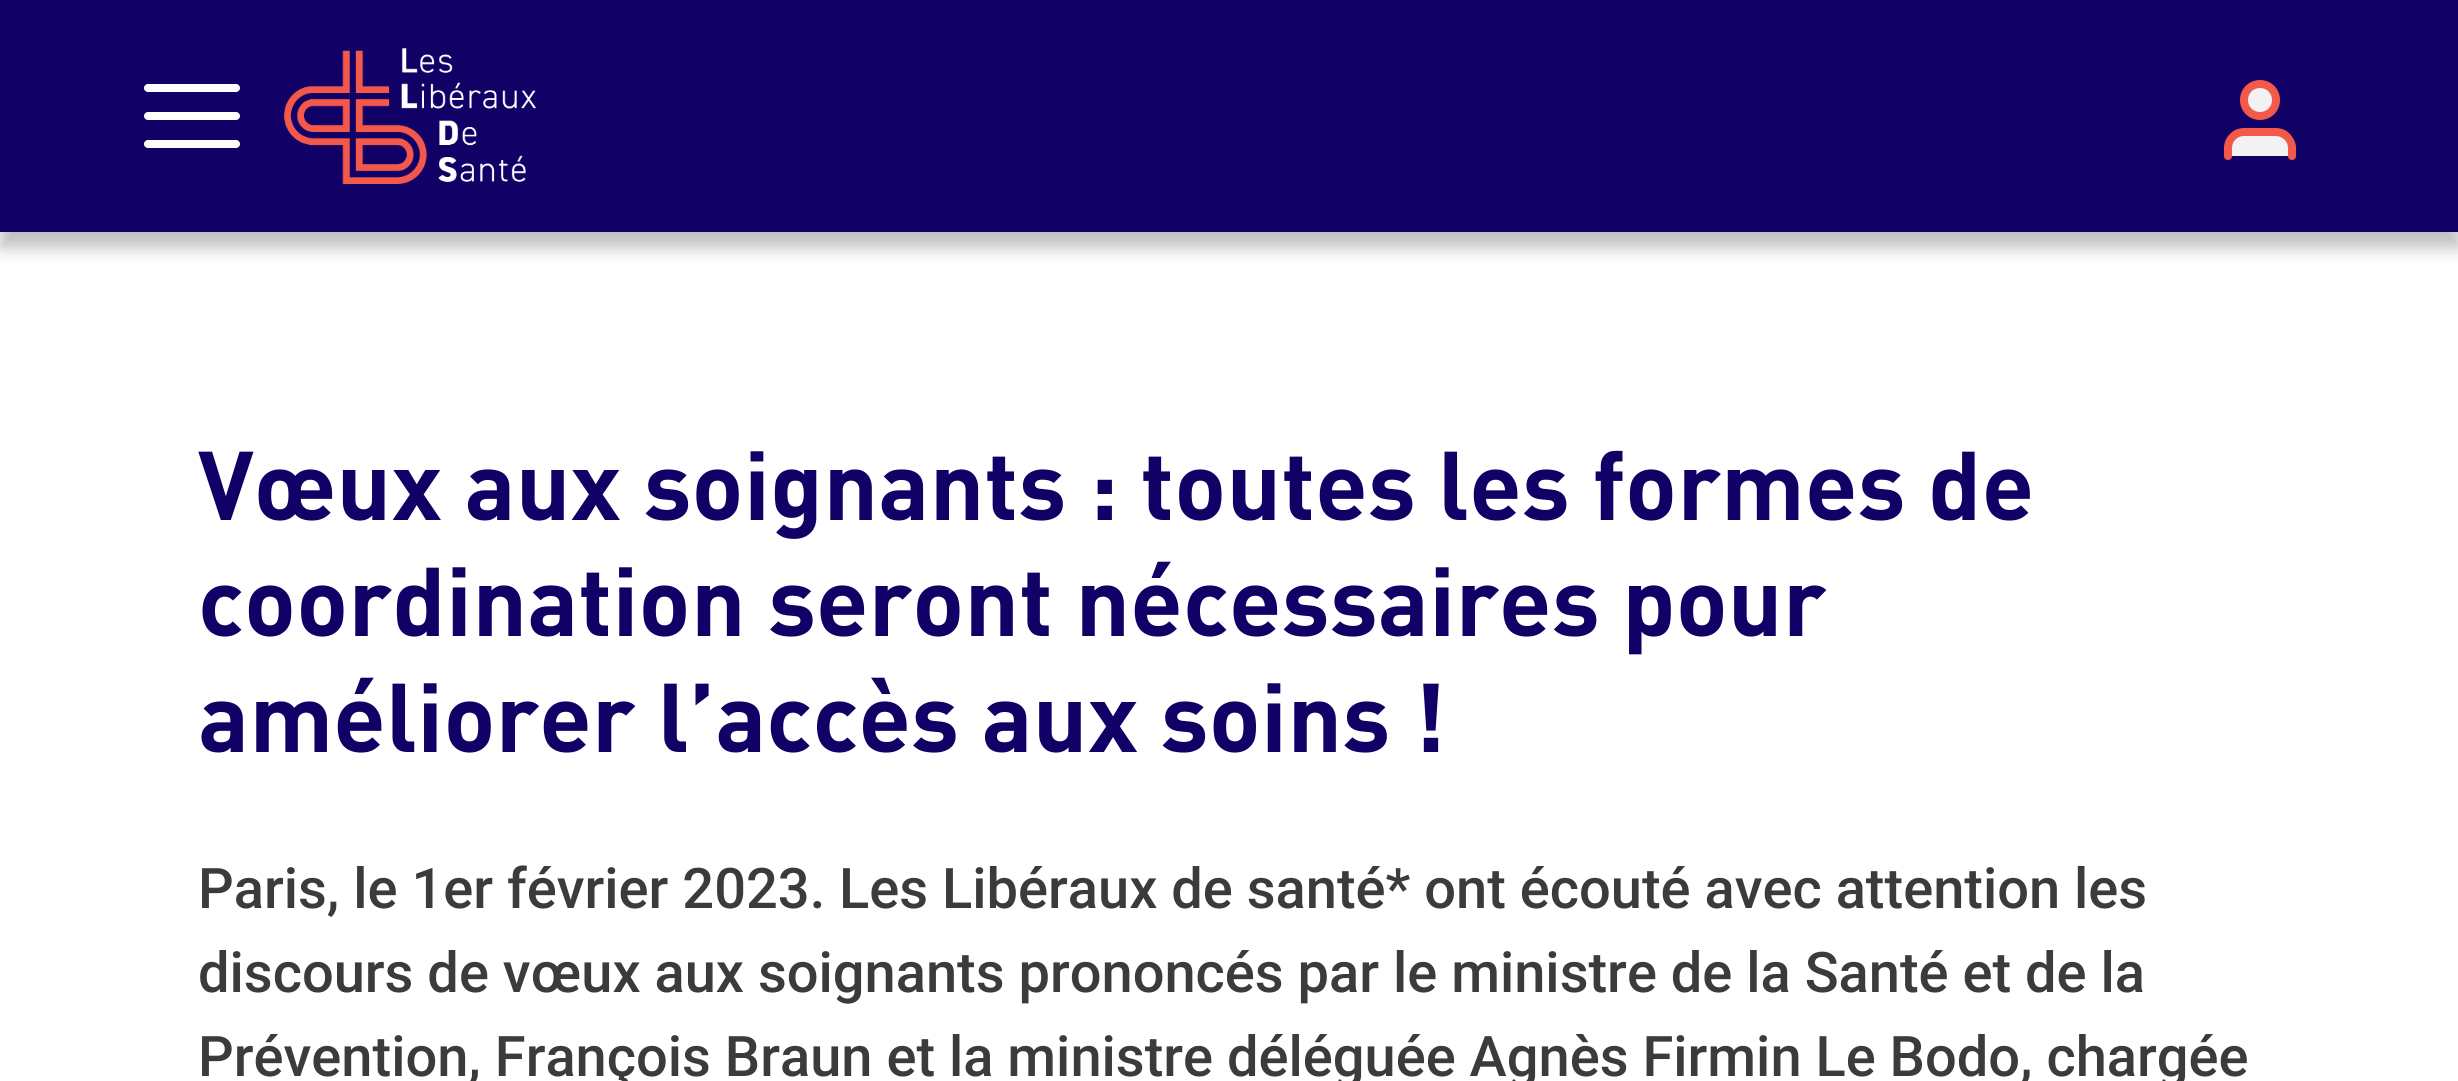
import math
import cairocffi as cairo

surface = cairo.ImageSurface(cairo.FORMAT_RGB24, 2458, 1081)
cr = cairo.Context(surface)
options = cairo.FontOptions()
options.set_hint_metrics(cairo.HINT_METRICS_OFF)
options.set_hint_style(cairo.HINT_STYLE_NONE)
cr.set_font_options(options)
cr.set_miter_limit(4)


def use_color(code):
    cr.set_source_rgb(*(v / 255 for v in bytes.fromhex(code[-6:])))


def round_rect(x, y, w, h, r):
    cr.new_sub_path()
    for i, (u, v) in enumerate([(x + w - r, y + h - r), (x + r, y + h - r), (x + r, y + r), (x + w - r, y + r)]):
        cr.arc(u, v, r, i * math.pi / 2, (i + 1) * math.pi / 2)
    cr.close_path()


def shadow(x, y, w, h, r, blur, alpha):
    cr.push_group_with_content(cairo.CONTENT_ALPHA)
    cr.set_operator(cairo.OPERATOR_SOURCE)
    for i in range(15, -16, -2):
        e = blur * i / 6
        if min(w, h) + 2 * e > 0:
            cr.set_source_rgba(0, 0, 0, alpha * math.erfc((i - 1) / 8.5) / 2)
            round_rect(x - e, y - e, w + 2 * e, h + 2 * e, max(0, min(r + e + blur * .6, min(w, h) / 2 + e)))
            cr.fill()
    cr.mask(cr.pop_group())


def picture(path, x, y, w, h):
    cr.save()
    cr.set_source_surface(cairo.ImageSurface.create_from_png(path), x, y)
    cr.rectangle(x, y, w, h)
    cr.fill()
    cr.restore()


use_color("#ffffff")
cr.paint()
use_color("#000000")
shadow(0, 16, 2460, 232, 0, 8, 0.25)
use_color("#110066")
cr.rectangle(0, 0, 2458, 232)
cr.fill()
use_color("#ffffff")
round_rect(144, 112, 96, 8, 4)
cr.fill()
round_rect(144, 84, 96, 8, 4)
cr.fill()
round_rect(144, 140, 96, 8, 4)
cr.fill()
picture("img1.png", 284, 48, 252, 136)
picture("img2.png", 2224, 80, 72, 80)
cr.select_font_face("DIN", cairo.FONT_SLANT_NORMAL, cairo.FONT_WEIGHT_BOLD)
cr.set_font_size(96)
use_color("#110066")
cr.move_to(198, 520)
cr.show_text("Vœux aux soignants : toutes les formes de")
cr.move_to(198, 636)
cr.show_text("coordination seront nécessaires pour")
cr.move_to(198, 752)
cr.show_text("améliorer l’accès aux soins !")
cr.select_font_face("Roboto Medium")
cr.set_font_size(56)
use_color("#3b3b3b")
cr.move_to(198, 908)
cr.show_text("Paris, le 1er février 2023. Les Libéraux de santé* ont écouté avec attention les")
cr.move_to(198, 992)
cr.show_text("discours de vœux aux soignants prononcés par le ministre de la Santé et de la")
cr.move_to(198, 1076)
cr.show_text("Prévention, François Braun et la ministre déléguée Agnès Firmin Le Bodo, chargée")
surface.write_to_png("result.png")
